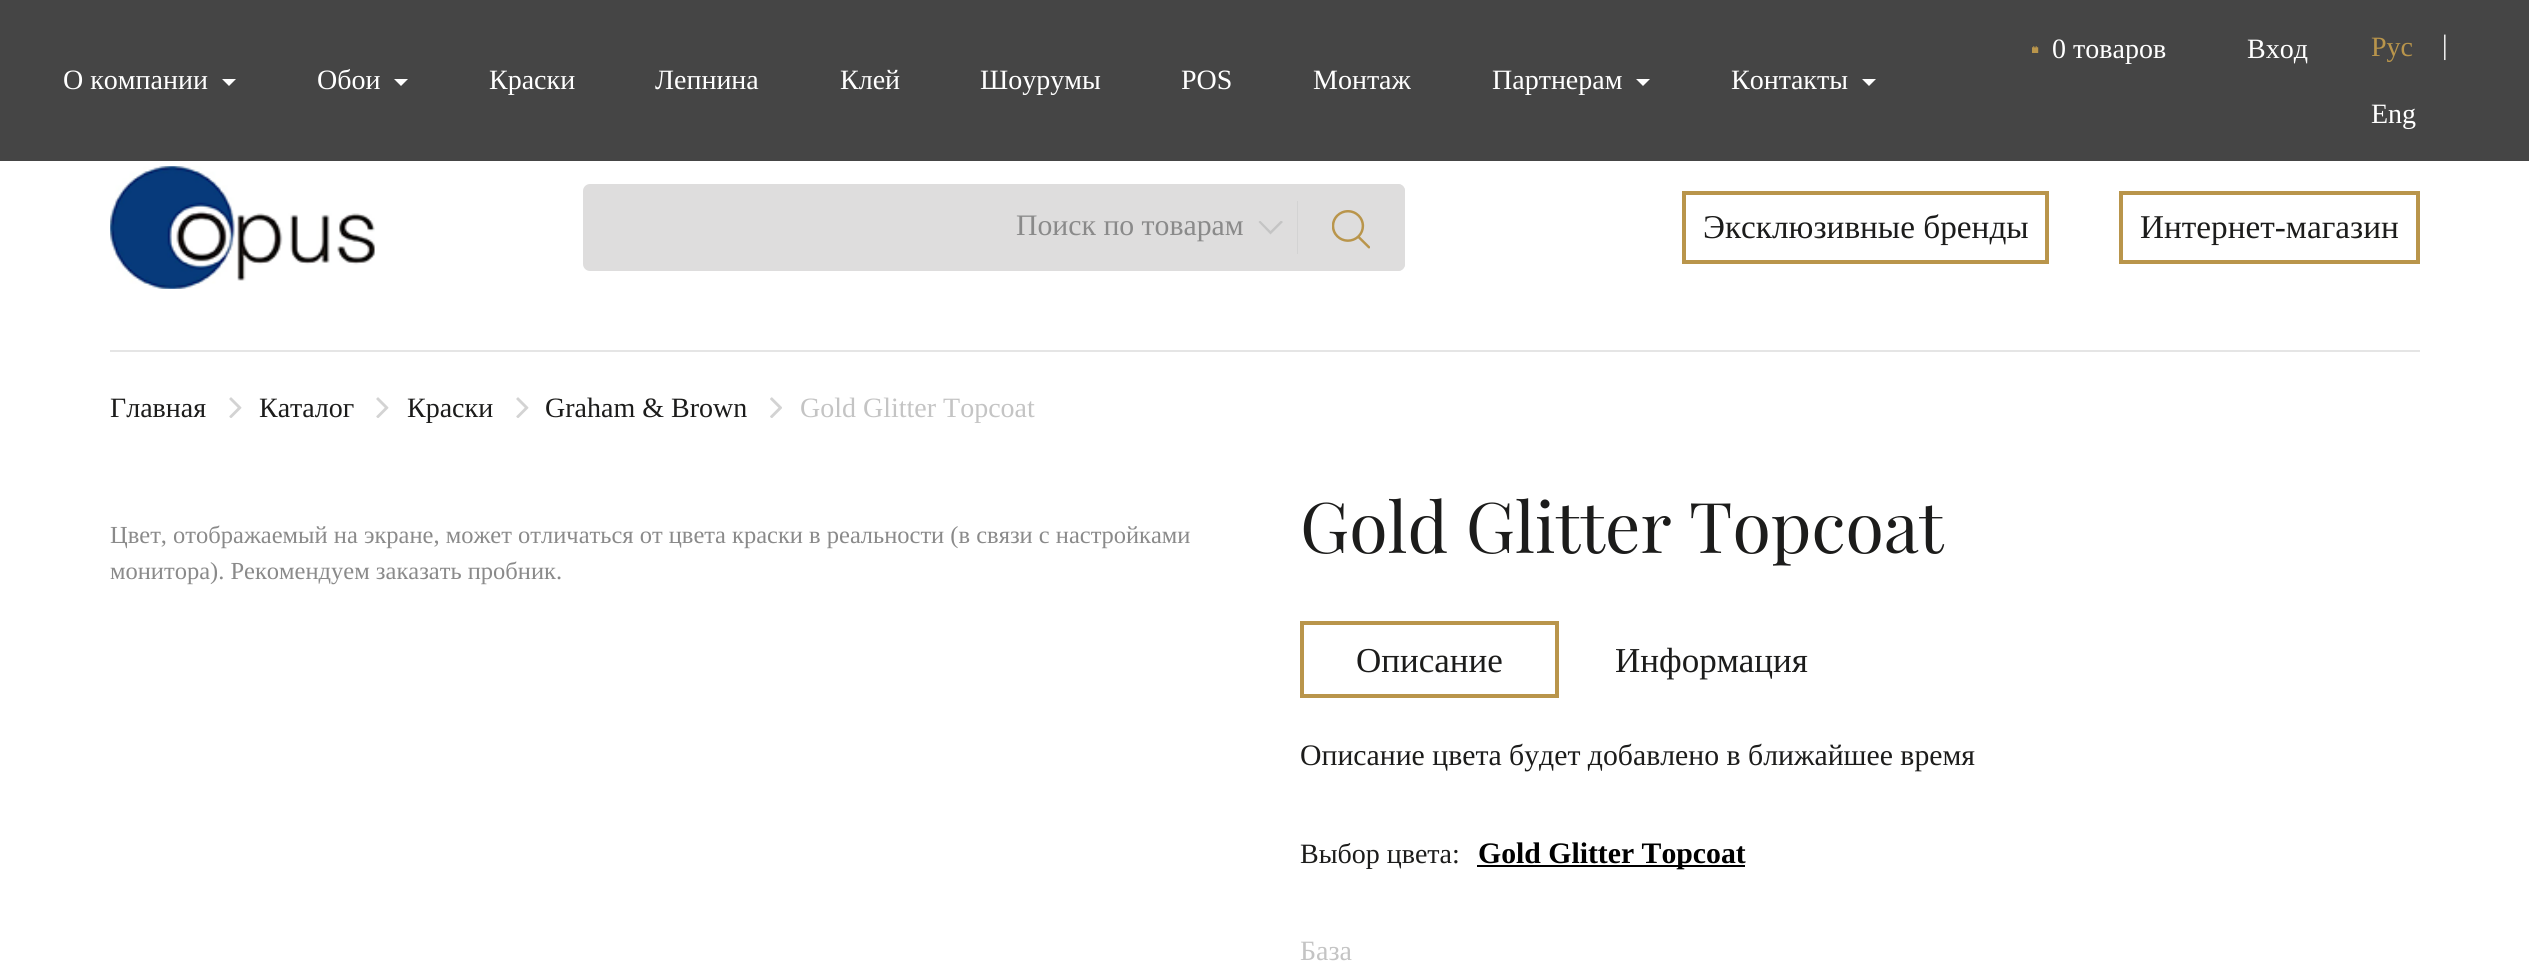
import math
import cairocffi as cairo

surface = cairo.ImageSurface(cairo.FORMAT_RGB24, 2529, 971)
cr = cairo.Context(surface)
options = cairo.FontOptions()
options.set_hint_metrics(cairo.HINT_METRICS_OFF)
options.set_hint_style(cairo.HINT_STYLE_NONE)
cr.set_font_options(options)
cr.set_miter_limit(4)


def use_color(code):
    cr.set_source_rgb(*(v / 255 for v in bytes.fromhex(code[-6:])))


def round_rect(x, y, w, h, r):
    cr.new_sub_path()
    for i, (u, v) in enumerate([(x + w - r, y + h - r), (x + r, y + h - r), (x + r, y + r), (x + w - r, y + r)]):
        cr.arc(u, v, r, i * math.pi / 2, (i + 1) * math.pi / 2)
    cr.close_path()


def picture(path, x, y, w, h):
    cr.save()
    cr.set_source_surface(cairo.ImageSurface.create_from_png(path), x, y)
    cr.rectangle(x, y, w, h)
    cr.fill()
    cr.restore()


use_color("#ffffff")
cr.paint()
use_color("#454545")
cr.rectangle(0, 0, 2529, 161)
cr.fill()
cr.select_font_face("Liberation Serif")
cr.set_font_size(28)
use_color("#ffffff")
cr.move_to(63, 89)
cr.show_text("О компании")
cr.new_path()
cr.move_to(222, 79)
cr.line_to(236, 79)
cr.line_to(229, 86)
cr.close_path()
cr.fill()
cr.move_to(317, 89)
cr.show_text("Обои")
cr.new_path()
cr.move_to(394, 79)
cr.line_to(408, 79)
cr.line_to(401, 86)
cr.close_path()
cr.fill()
cr.move_to(489, 89)
cr.show_text("Краски")
cr.move_to(655, 89)
cr.show_text("Лепнина")
cr.move_to(840, 89)
cr.show_text("Клей")
cr.move_to(980, 89)
cr.show_text("Шоурумы")
cr.move_to(1181, 89)
cr.show_text("POS")
cr.move_to(1313, 89)
cr.show_text("Монтаж")
cr.move_to(1492, 89)
cr.show_text("Партнерам")
cr.new_path()
cr.move_to(1636, 79)
cr.line_to(1650, 79)
cr.line_to(1643, 86)
cr.close_path()
cr.fill()
cr.move_to(1731, 89)
cr.show_text("Контакты")
cr.new_path()
cr.move_to(1862, 79)
cr.line_to(1876, 79)
cr.line_to(1869, 86)
cr.close_path()
cr.fill()
picture("img1.png", 2032, 46, 7, 7)
cr.move_to(2052, 58)
cr.show_text("0 товаров")
cr.move_to(2247, 58)
cr.show_text("Вход")
use_color("#b9954b")
cr.move_to(2371, 56)
cr.show_text("Рус")
use_color("#ffffff")
cr.move_to(2442, 54)
cr.show_text("|")
cr.move_to(2371, 123)
cr.show_text("Eng")
use_color("#e5e5e5")
cr.rectangle(110, 350, 2310, 2)
cr.fill()
picture("img2.png", 110, 166, 265, 123)
use_color("#dedddd")
round_rect(583, 184, 822, 87, 7)
cr.fill()
cr.set_font_size(29.75)
use_color("#8a8a8a")
cr.move_to(1016, 235)
cr.show_text("Поиск по товарам")
cr.save()
cr.rectangle(1258, 221, 25, 14)
cr.clip()
use_color("#c4c4c4")
cr.set_fill_rule(cairo.FILL_RULE_EVEN_ODD)
cr.new_path()
cr.move_to(1270.5, 231)
cr.line_to(1281, 220.5)
cr.line_to(1283, 222)
cr.line_to(1270.5, 234.5)
cr.line_to(1258.5, 222)
cr.line_to(1260, 220.5)
cr.close_path()
cr.fill()
cr.restore()
use_color("#dedddd")
round_rect(1297, 184, 108, 87, 7)
cr.fill()
use_color("#d3d3d3")
cr.rectangle(1297, 201, 1, 53)
cr.fill()
picture("img3.png", 1332, 210, 38, 39)
cr.rectangle(1684, 193, 363, 69)
use_color("#b9954b")
cr.set_line_width(4)
cr.stroke()
cr.set_font_size(33.25)
use_color("#1c1c1b")
cr.move_to(1703, 238)
cr.show_text("Эксклюзивные бренды")
cr.rectangle(2121, 193, 297, 69)
use_color("#b9954b")
cr.stroke()
use_color("#1c1c1b")
cr.move_to(2140, 238)
cr.show_text("Интернет-магазин")
cr.set_font_size(28)
cr.move_to(110, 417)
cr.show_text("Главная")
picture("img4.png", 229, 397, 13, 21)
cr.move_to(259, 417)
cr.show_text("Каталог")
picture("img4.png", 376, 397, 13, 21)
cr.move_to(407, 417)
cr.show_text("Краски")
picture("img4.png", 516, 397, 13, 21)
cr.move_to(545, 417)
cr.show_text("Graham & Brown")
picture("img5.png", 770, 397, 12, 21)
use_color("#c4c4c4")
cr.move_to(800, 417)
cr.show_text("Gold Glitter Topcoat")
cr.set_font_size(24.5)
use_color("#8a8a8a")
cr.move_to(110, 543)
cr.show_text("Цвет, отображаемый на экране, может отличаться от цвета краски в реальности (в связи с настройками")
cr.move_to(110, 579)
cr.show_text("монитора). Рекомендуем заказать пробник.")
cr.select_font_face("Playfair Display")
cr.set_font_size(70)
use_color("#1c1c1b")
cr.move_to(1300, 553)
cr.show_text("Gold Glitter Topcoat")
cr.rectangle(1302, 623, 255, 73)
use_color("#b9954b")
cr.stroke()
cr.select_font_face("Liberation Serif")
cr.set_font_size(35)
use_color("#1c1c1b")
cr.move_to(1356, 672)
cr.show_text("Описание")
cr.move_to(1615, 672)
cr.show_text("Информация")
cr.set_font_size(29.75)
cr.move_to(1300, 765)
cr.show_text("Описание цвета будет добавлено в ближайшее время")
cr.set_font_size(28)
cr.move_to(1300, 863)
cr.show_text("Выбор цвета:")
use_color("#000000")
cr.rectangle(1477, 865, 268, 2)
cr.fill()
cr.select_font_face("Liberation Serif", cairo.FONT_SLANT_NORMAL, cairo.FONT_WEIGHT_BOLD)
cr.set_font_size(29.75)
cr.move_to(1478, 863)
cr.show_text("Gold Glitter Topcoat")
cr.select_font_face("Liberation Serif")
cr.set_font_size(28)
use_color("#c4c4c4")
cr.move_to(1300, 960)
cr.show_text("База")
surface.write_to_png("result.png")
